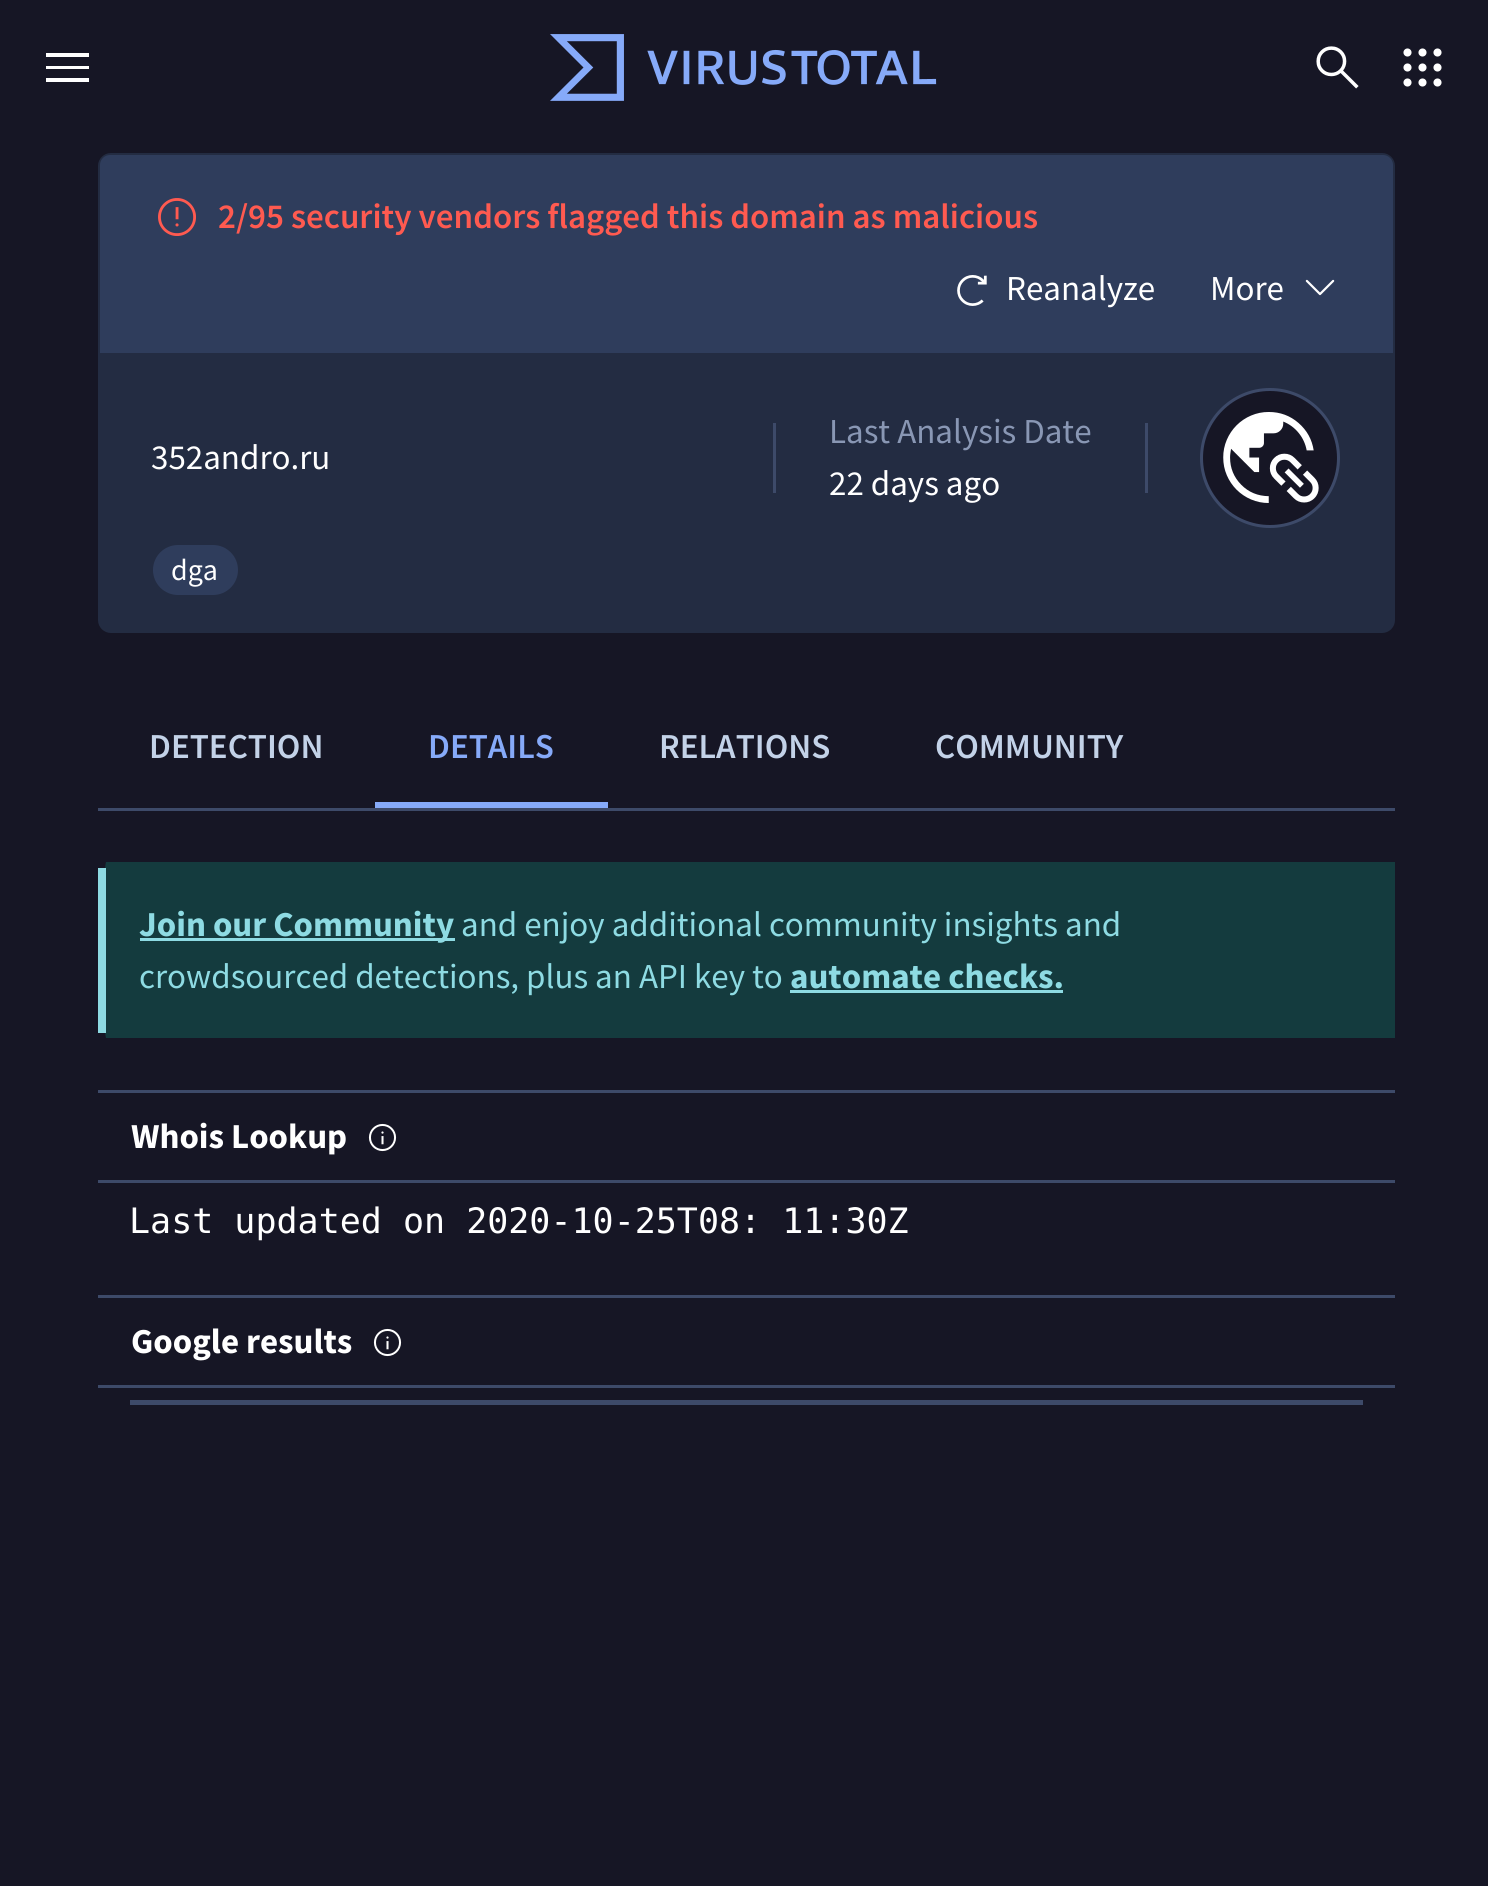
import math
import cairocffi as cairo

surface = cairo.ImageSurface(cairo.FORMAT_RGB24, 1488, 1886)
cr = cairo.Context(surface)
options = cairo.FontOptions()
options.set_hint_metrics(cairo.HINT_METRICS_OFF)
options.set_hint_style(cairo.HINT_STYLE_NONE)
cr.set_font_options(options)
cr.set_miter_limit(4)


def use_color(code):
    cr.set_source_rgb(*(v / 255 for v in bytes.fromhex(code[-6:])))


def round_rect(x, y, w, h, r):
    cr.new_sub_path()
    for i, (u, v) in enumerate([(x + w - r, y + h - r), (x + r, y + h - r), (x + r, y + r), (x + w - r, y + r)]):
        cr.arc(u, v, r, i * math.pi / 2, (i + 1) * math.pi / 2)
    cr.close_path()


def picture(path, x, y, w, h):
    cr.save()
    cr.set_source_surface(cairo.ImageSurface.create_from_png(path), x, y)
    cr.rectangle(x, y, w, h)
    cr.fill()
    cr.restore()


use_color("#161625")
cr.paint()
use_color("#ffffff")
cr.new_path()
cr.move_to(46, 82)
cr.line_to(46, 78)
cr.line_to(89, 78)
cr.line_to(89, 82)
cr.close_path()
cr.move_to(46, 69)
cr.line_to(46, 66)
cr.line_to(89, 66)
cr.line_to(89, 69)
cr.close_path()
cr.move_to(46, 57)
cr.line_to(46, 53)
cr.line_to(89, 53)
cr.line_to(89, 57)
cr.close_path()
cr.fill()
picture("img1.png", 550, 34, 387, 67)
picture("img2.png", 1316, 46, 43, 43)
picture("img3.png", 1403, 48, 39, 39)
use_color("#232c42")
round_rect(98, 153, 1297, 480, 13)
cr.fill()
use_color("#2f3d5c")
cr.new_path()
cr.move_to(110, 155)
cr.line_to(1383, 155)
cr.curve_to(1388.5, 155, 1393, 159.5, 1393, 165)
cr.line_to(1393, 353)
cr.line_to(100, 353)
cr.line_to(100, 165)
cr.curve_to(100, 159.5, 104.5, 155, 110, 155)
cr.close_path()
cr.fill()
picture("img4.png", 158, 198, 38, 38)
cr.select_font_face("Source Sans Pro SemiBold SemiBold")
cr.set_font_size(35)
use_color("#ff5a50")
cr.move_to(218, 228)
cr.show_text("2/95 security vendors flagged this domain as malicious")
picture("img5.png", 957, 275, 30, 31)
cr.select_font_face("Source Sans Pro")
use_color("#ffffff")
cr.move_to(1006, 300)
cr.show_text("Reanalyze")
cr.move_to(1210, 300)
cr.show_text("More")
picture("img6.png", 1305, 279, 30, 17)
cr.move_to(151, 469)
cr.show_text("352andro.ru")
use_color("#3d4a69")
cr.rectangle(773, 423, 3, 70)
cr.fill()
use_color("#8997b4")
cr.move_to(829, 443)
cr.show_text("Last Analysis Date")
use_color("#ffffff")
cr.move_to(829, 495)
cr.show_text("22 days ago")
use_color("#3d4a69")
cr.rectangle(1145, 423, 3, 70)
cr.fill()
use_color("#161625")
cr.arc(1270, 458, 68.5, 0, 2 * math.pi)
cr.fill_preserve()
use_color("#3d4a69")
cr.set_line_width(3)
cr.stroke()
picture("img7.png", 1223, 412, 96, 91)
use_color("#2f3d5c")
round_rect(153, 545, 85, 50, 25)
cr.fill()
cr.set_font_size(30)
use_color("#ffffff")
cr.move_to(171, 580)
cr.show_text("dga")
use_color("#3d4a69")
cr.rectangle(98, 808, 1297, 3)
cr.fill()
cr.select_font_face("Source Sans Pro SemiBold SemiBold")
cr.set_font_size(35)
use_color("#c3d2e8")
cr.move_to(149, 758)
cr.show_text("DETECTION")
use_color("#86aaf9")
cr.rectangle(375, 802, 233, 6)
cr.fill()
cr.move_to(428, 758)
cr.show_text("DETAILS")
use_color("#c3d2e8")
cr.move_to(659, 758)
cr.show_text("RELATIONS")
cr.move_to(935, 758)
cr.show_text("COMMUNITY")
use_color("#143b3e")
cr.new_path()
cr.move_to(106, 862)
cr.line_to(1395, 862)
cr.line_to(1395, 1038)
cr.line_to(106, 1038)
cr.curve_to(106, 1038, 105, 1034, 105, 1029)
cr.line_to(105, 871)
cr.curve_to(105, 866, 106, 862, 106, 862)
cr.close_path()
cr.fill()
use_color("#8edbe3")
cr.rectangle(98, 868, 8, 165)
cr.fill()
cr.rectangle(140, 938, 315, 3)
cr.fill()
cr.select_font_face("Source Sans Pro", cairo.FONT_SLANT_NORMAL, cairo.FONT_WEIGHT_BOLD)
cr.move_to(139, 936)
cr.show_text("Join our Community")
cr.select_font_face("Source Sans Pro")
cr.move_to(461, 936)
cr.show_text("and enjoy additional community insights and")
cr.move_to(139, 988)
cr.show_text("crowdsourced detections, plus an API key to")
cr.select_font_face("Source Sans Pro", cairo.FONT_SLANT_NORMAL, cairo.FONT_WEIGHT_BOLD)
cr.move_to(790, 988)
cr.show_text("automate checks.")
cr.rectangle(790, 990, 273, 3)
cr.fill()
use_color("#3d4a69")
cr.rectangle(98, 1090, 1297, 3)
cr.fill()
cr.rectangle(98, 1180, 1297, 3)
cr.fill()
use_color("#ffffff")
cr.move_to(131, 1148)
cr.show_text("Whois Lookup")
picture("img8.png", 368, 1123, 29, 29)
cr.select_font_face("DejaVu Sans Mono")
cr.move_to(129, 1233)
cr.show_text("Last updated on 2020-10-25T08: 11:30Z")
use_color("#3d4a69")
cr.rectangle(98, 1295, 1297, 3)
cr.fill()
cr.rectangle(98, 1385, 1297, 3)
cr.fill()
cr.select_font_face("Source Sans Pro", cairo.FONT_SLANT_NORMAL, cairo.FONT_WEIGHT_BOLD)
use_color("#ffffff")
cr.move_to(131, 1353)
cr.show_text("Google results")
picture("img8.png", 373, 1328, 29, 29)
use_color("#3d4a69")
cr.rectangle(130, 1400, 1233, 5)
cr.fill()
surface.write_to_png("result.png")
